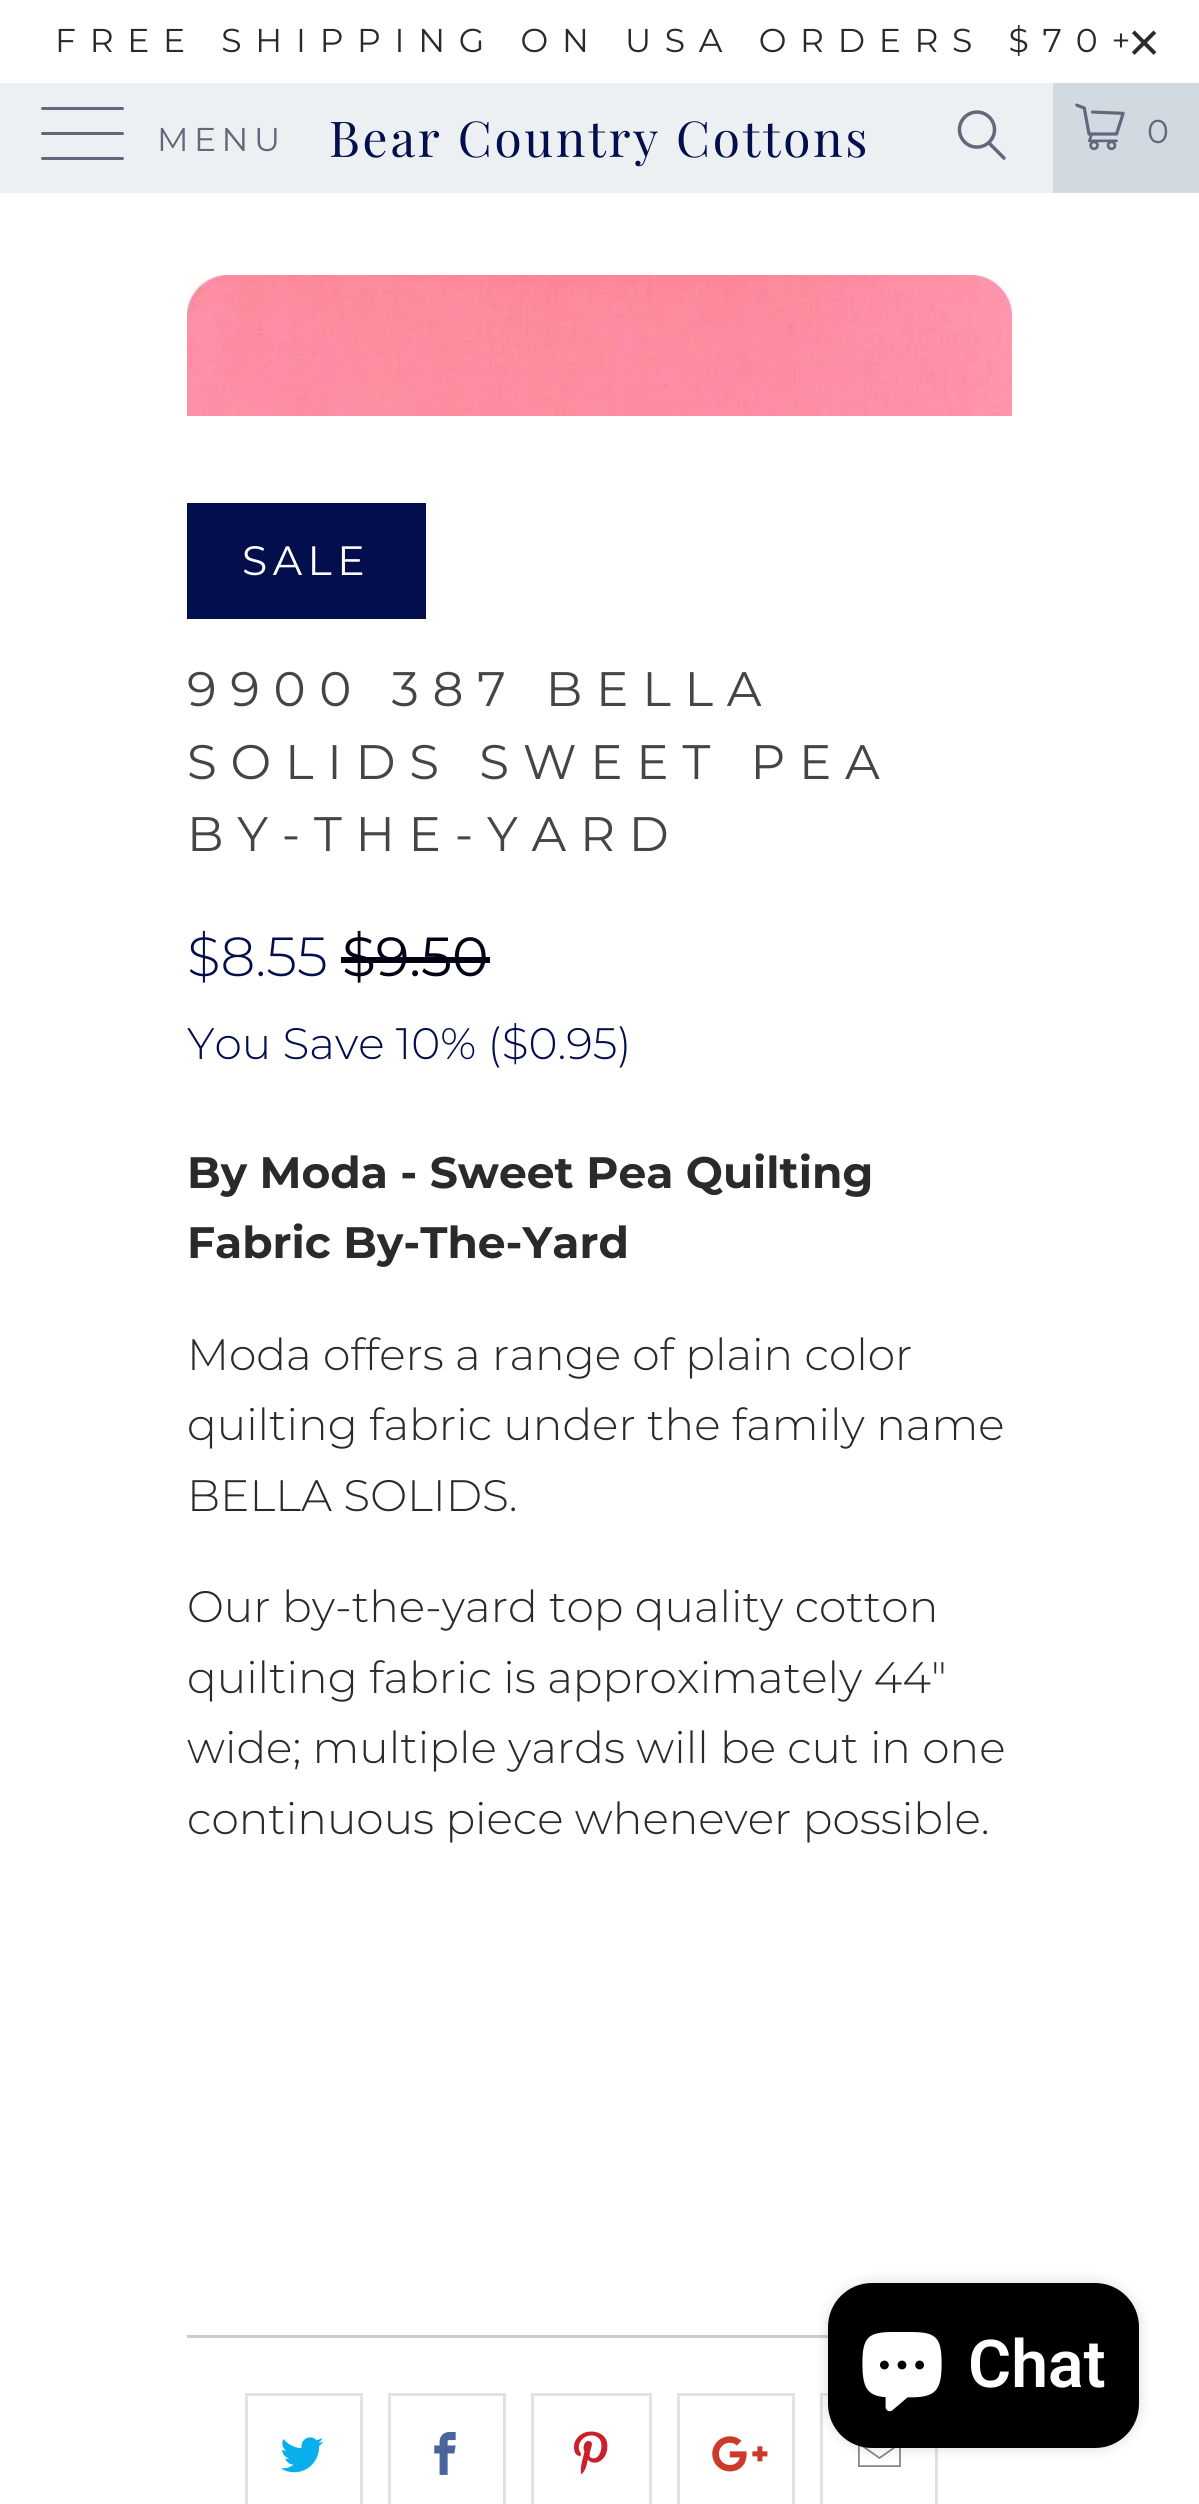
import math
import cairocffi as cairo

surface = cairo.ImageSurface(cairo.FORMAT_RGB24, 1199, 2504)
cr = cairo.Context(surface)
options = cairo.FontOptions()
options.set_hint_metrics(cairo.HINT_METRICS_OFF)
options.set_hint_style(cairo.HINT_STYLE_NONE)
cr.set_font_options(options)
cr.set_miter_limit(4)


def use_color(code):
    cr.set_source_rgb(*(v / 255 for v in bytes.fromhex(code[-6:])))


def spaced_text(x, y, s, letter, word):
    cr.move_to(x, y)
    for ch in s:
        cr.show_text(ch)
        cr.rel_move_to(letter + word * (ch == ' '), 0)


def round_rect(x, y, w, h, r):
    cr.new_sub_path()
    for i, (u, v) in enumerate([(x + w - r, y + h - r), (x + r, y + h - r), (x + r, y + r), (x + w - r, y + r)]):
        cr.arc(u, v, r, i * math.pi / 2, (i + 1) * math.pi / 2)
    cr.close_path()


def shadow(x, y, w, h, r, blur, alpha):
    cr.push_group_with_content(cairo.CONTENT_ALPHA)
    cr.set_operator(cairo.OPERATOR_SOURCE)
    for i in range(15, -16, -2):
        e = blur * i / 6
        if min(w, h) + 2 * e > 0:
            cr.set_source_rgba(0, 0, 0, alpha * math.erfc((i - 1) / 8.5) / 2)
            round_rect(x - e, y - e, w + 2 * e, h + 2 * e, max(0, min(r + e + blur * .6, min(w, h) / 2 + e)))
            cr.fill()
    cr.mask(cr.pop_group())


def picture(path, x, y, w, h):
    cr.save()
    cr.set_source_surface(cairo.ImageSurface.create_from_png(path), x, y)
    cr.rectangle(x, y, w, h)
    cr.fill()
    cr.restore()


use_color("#ffffff")
cr.paint()
cr.select_font_face("Montserrat")
cr.set_font_size(33)
use_color("#2b2a2a")
spaced_text(55, 52, "FREE SHIPPING ON USA ORDERS $70+", 13.75, 0)
cr.select_font_face("Liberation Sans")
cr.set_font_size(55)
spaced_text(1128, 61, "×", 13.75, 0)
use_color("#ecf0f3")
cr.rectangle(0, 83, 1053, 110)
cr.fill()
use_color("#62677b")
round_rect(41, 107, 83, 3, 1.5)
cr.fill()
round_rect(41, 132, 83, 3, 1.5)
cr.fill()
round_rect(41, 157, 83, 3, 1.5)
cr.fill()
cr.select_font_face("Montserrat")
cr.set_font_size(33)
spaced_text(157, 151, "MENU", 5.5, 0)
cr.select_font_face("Playfair Display")
cr.set_font_size(49.5)
use_color("#020f4c")
spaced_text(329, 157, "Bear Country Cottons", 2.75, 0)
picture("img1.png", 957, 110, 49, 50)
use_color("#d1d9e1")
cr.rectangle(1053, 83, 146, 110)
cr.fill()
picture("img2.png", 1075, 103, 50, 48)
cr.select_font_face("Montserrat")
cr.set_font_size(33)
use_color("#62677b")
spaced_text(1147, 143, "0", 2.75, 0)
picture("img3.png", 187, 275, 825, 141)
use_color("#020f4c")
cr.rectangle(187, 503, 239, 116)
cr.fill()
cr.set_font_size(41)
use_color("#ffffff")
spaced_text(242, 575, "SALE", 5.5, 0)
cr.set_font_size(48.4)
use_color("#454545")
spaced_text(187, 706, "9900 387 BELLA", 13.75, 0)
spaced_text(187, 779, "SOLIDS SWEET PEA", 13.75, 0)
spaced_text(187, 851, "BY-THE-YARD", 13.75, 0)
cr.select_font_face("Montserrat Light")
cr.set_font_size(55)
use_color("#020f4c")
cr.move_to(187, 976)
cr.show_text("$8.55")
cr.select_font_face("Montserrat")
use_color("#010315")
cr.move_to(342, 976)
cr.show_text("$9.50")
cr.rectangle(341, 957, 149, 6)
cr.fill()
cr.select_font_face("Montserrat Light")
cr.set_font_size(44)
use_color("#020f4c")
cr.move_to(187, 1059)
cr.show_text("You Save 10% ($0.95)")
cr.select_font_face("Montserrat", cairo.FONT_SLANT_NORMAL, cairo.FONT_WEIGHT_BOLD)
use_color("#2b2a2a")
cr.move_to(187, 1188)
cr.show_text("By Moda - Sweet Pea Quilting")
cr.move_to(187, 1258)
cr.show_text("Fabric By-The-Yard")
cr.select_font_face("Montserrat Light")
cr.move_to(187, 1370)
cr.show_text("Moda offers a range of plain color")
cr.move_to(187, 1440)
cr.show_text("quilting fabric under the family name")
cr.move_to(187, 1511)
cr.show_text("BELLA SOLIDS.")
cr.move_to(187, 1622)
cr.show_text("Our by-the-yard top quality cotton")
cr.move_to(187, 1693)
cr.show_text("quilting fabric is approximately 44\"")
cr.move_to(187, 1763)
cr.show_text("wide; multiple yards will be cut in one")
cr.move_to(187, 1834)
cr.show_text("continuous piece whenever possible.")
use_color("#cccccc")
cr.rectangle(187, 2335, 641, 3)
cr.fill()
cr.rectangle(246.5, 2394.5, 115, 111)
use_color("#e2e2e2")
cr.set_line_width(3)
cr.stroke()
picture("img4.png", 280, 2437, 44, 36)
cr.rectangle(389.5, 2394.5, 115, 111)
cr.stroke()
picture("img5.png", 434, 2432, 22, 43)
cr.rectangle(532.5, 2394.5, 118, 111)
cr.stroke()
picture("img6.png", 574, 2431, 34, 44)
cr.rectangle(678.5, 2394.5, 115, 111)
cr.stroke()
picture("img7.png", 712, 2436, 56, 36)
cr.rectangle(821.5, 2394.5, 115, 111)
cr.stroke()
picture("img8.png", 858, 2445, 43, 22)
use_color("#000000")
shadow(828, 2283, 311, 165, 44, 7, 0.15)
use_color("#000000")
round_rect(828, 2283, 311, 165, 44)
cr.fill()
picture("img9.png", 862, 2332, 80, 80)
cr.select_font_face("Roboto SemiBold")
cr.set_font_size(66)
use_color("#ffffff")
cr.move_to(968, 2387)
cr.show_text("Chat")
surface.write_to_png("result.png")
